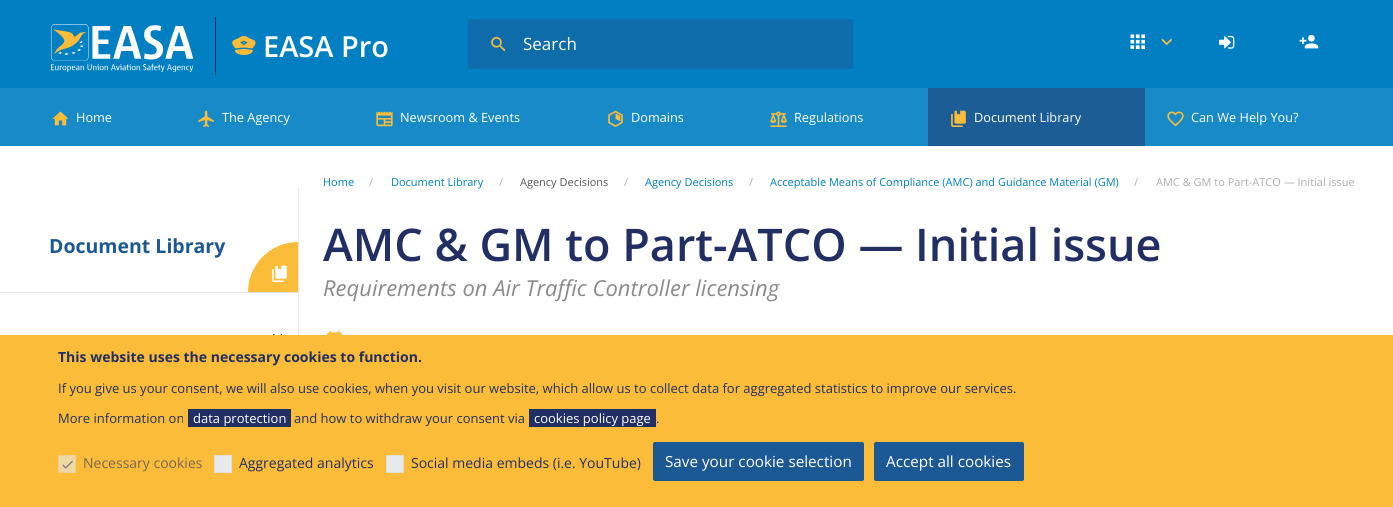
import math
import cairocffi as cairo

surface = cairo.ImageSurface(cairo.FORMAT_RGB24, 1393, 507)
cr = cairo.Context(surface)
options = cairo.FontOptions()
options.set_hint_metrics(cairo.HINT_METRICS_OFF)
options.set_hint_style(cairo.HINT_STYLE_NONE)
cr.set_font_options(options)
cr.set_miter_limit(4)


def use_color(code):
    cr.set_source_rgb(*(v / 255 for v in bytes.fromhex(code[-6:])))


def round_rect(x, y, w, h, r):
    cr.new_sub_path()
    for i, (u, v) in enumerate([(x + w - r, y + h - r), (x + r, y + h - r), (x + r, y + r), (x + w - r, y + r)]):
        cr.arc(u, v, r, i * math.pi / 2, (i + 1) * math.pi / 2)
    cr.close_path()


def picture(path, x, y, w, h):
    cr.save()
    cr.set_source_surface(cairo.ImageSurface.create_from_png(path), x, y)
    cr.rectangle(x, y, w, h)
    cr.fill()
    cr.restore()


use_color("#ffffff")
cr.paint()
use_color("#007fc2")
cr.rectangle(0, 0, 1393, 88)
cr.fill()
picture("img1.png", 50, 24, 144, 48)
use_color("#222f64")
cr.rectangle(215, 17, 1, 58)
cr.fill()
picture("img2.png", 232, 36, 24, 19)
cr.select_font_face("Open Sans SemiBold")
cr.set_font_size(29)
use_color("#ffffff")
cr.move_to(263, 57)
cr.show_text("EASA Pro")
use_color("#0e6cab")
round_rect(468, 19, 385, 50, 2)
cr.fill()
picture("img3.png", 491, 37, 15, 15)
cr.select_font_face("Open Sans")
cr.set_font_size(17)
use_color("#ffffff")
cr.move_to(523, 50)
cr.show_text("Search")
picture("img4.png", 1130, 34, 15, 15)
picture("img5.png", 1161, 38, 12, 8)
picture("img6.png", 1219, 35, 16, 14)
picture("img7.png", 1299, 34, 20, 15)
use_color("#178ac7")
cr.rectangle(0, 88, 1393, 58)
cr.fill()
picture("img8.png", 52, 111, 17, 15)
cr.set_font_size(12.75)
use_color("#ffffff")
cr.move_to(76, 122)
cr.show_text("Home")
picture("img9.png", 198, 110, 16, 17)
cr.move_to(222, 122)
cr.show_text("The Agency")
picture("img10.png", 376, 111, 17, 16)
cr.move_to(400, 122)
cr.show_text("Newsroom & Events")
picture("img11.png", 608, 110, 15, 17)
cr.move_to(631, 122)
cr.show_text("Domains")
picture("img12.png", 770, 111, 17, 16)
cr.move_to(794, 122)
cr.show_text("Regulations")
use_color("#1d5d96")
cr.rectangle(928, 88, 217, 58)
cr.fill()
picture("img13.png", 951, 110, 15, 17)
use_color("#ffffff")
cr.move_to(974, 122)
cr.show_text("Document Library")
picture("img14.png", 1167, 111, 17, 16)
cr.move_to(1191, 122)
cr.show_text("Can We Help You?")
use_color("#e7e7e7")
cr.rectangle(0, 292, 298, 1)
cr.fill()
cr.select_font_face("Open Sans", cairo.FONT_SLANT_NORMAL, cairo.FONT_WEIGHT_BOLD)
cr.set_font_size(19.5)
use_color("#1c5893")
cr.move_to(49, 253)
cr.show_text("Document Library")
use_color("#fbbc39")
cr.new_path()
cr.move_to(298, 242)
cr.line_to(298, 292)
cr.line_to(248, 292)
cr.curve_to(248, 264.5, 270.5, 242, 298, 242)
cr.close_path()
cr.fill()
picture("img15.png", 272, 265, 15, 17)
picture("img16.png", 273, 334, 10, 1)
use_color("#e7e7e7")
cr.rectangle(298, 188, 1, 147)
cr.fill()
cr.select_font_face("Open Sans")
cr.set_font_size(11)
use_color("#007fc2")
cr.move_to(323, 186)
cr.show_text("Home")
use_color("#adadad")
cr.move_to(369, 186)
cr.show_text("/")
use_color("#007fc2")
cr.move_to(391, 186)
cr.show_text("Document Library")
use_color("#adadad")
cr.move_to(499, 186)
cr.show_text("/")
use_color("#555555")
cr.move_to(520, 186)
cr.show_text("Agency Decisions")
use_color("#adadad")
cr.move_to(624, 186)
cr.show_text("/")
use_color("#007fc2")
cr.move_to(645, 186)
cr.show_text("Agency Decisions")
use_color("#adadad")
cr.move_to(749, 186)
cr.show_text("/")
use_color("#007fc2")
cr.move_to(770, 186)
cr.show_text("Acceptable Means of Compliance (AMC) and Guidance Material (GM)")
use_color("#adadad")
cr.move_to(1134, 186)
cr.show_text("/")
cr.move_to(1156, 186)
cr.show_text("AMC & GM to Part-ATCO — Initial issue")
cr.select_font_face("Open Sans SemiBold")
cr.set_font_size(45)
use_color("#222f64")
cr.move_to(323, 261)
cr.show_text("AMC & GM to Part-ATCO — Initial issue")
cr.select_font_face("Open Sans", cairo.FONT_SLANT_ITALIC)
cr.set_font_size(22)
use_color("#8a8a8a")
cr.move_to(323, 296)
cr.show_text("Requirements on Air Traffic Controller licensing")
picture("img17.png", 327, 330, 15, 5)
use_color("#fbbc39")
cr.rectangle(0, 335, 1393, 172)
cr.fill()
cr.select_font_face("Open Sans", cairo.FONT_SLANT_NORMAL, cairo.FONT_WEIGHT_BOLD)
cr.set_font_size(14)
use_color("#222f64")
cr.move_to(58, 362)
cr.show_text("This website uses the necessary cookies to function.")
cr.select_font_face("Open Sans")
cr.set_font_size(13)
cr.move_to(58, 393)
cr.show_text("If you give us your consent, we will also use cookies, when you visit our website, which allow us to collect data for aggregated statistics to improve our services.")
cr.move_to(58, 423)
cr.show_text("More information on")
cr.rectangle(188, 409, 103, 18)
cr.fill()
use_color("#ffffff")
cr.move_to(193, 423)
cr.show_text("data protection")
use_color("#222f64")
cr.move_to(294, 423)
cr.show_text("and how to withdraw your consent via")
cr.rectangle(529, 409, 127, 18)
cr.fill()
use_color("#ffffff")
cr.move_to(534, 423)
cr.show_text("cookies policy page")
use_color("#222f64")
cr.move_to(656, 423)
cr.show_text(".")
use_color("#efd8a4")
cr.rectangle(58.5, 455.5, 17, 17)
cr.fill_preserve()
use_color("#e9d09b")
cr.set_line_width(1)
cr.stroke()
cr.set_font_size(14)
use_color("#796753")
cr.move_to(83, 468)
cr.show_text("Necessary cookies")
picture("img18.png", 62, 460, 11, 9)
use_color("#e7eaeb")
cr.rectangle(214.5, 455.5, 17, 17)
cr.fill_preserve()
use_color("#dddddd")
cr.stroke()
use_color("#222f64")
cr.move_to(239, 468)
cr.show_text("Aggregated analytics")
use_color("#e7eaeb")
cr.rectangle(386.5, 455.5, 17, 17)
cr.fill_preserve()
use_color("#dddddd")
cr.stroke()
use_color("#222f64")
cr.move_to(411, 468)
cr.show_text("Social media embeds (i.e. YouTube)")
use_color("#1c5893")
round_rect(653, 442, 211, 39, 2)
cr.fill()
cr.set_font_size(15.25)
use_color("#ffffff")
cr.move_to(665, 467)
cr.show_text("Save your cookie selection")
use_color("#1c5893")
round_rect(874, 442, 150, 39, 2)
cr.fill()
use_color("#ffffff")
cr.move_to(886, 467)
cr.show_text("Accept all cookies")
surface.write_to_png("result.png")
